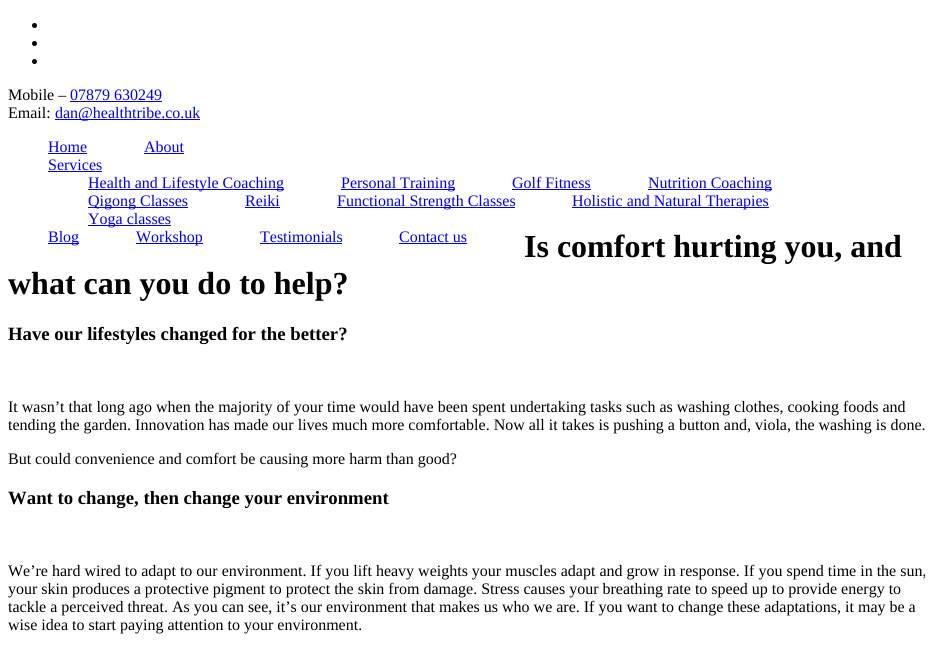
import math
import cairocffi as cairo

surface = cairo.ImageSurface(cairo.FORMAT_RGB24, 950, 656)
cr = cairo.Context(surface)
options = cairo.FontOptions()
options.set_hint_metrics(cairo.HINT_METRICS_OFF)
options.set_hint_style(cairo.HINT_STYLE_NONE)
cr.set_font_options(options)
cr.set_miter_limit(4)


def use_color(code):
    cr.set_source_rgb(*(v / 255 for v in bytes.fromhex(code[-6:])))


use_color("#ffffff")
cr.paint()
use_color("#000000")
cr.arc(34.5, 25.5, 2.5, 0, 2 * math.pi)
cr.fill()
cr.arc(34.5, 43.5, 2.5, 0, 2 * math.pi)
cr.fill()
cr.arc(34.5, 61.5, 2.5, 0, 2 * math.pi)
cr.fill()
cr.select_font_face("Liberation Serif")
cr.set_font_size(16)
cr.move_to(8, 100)
cr.show_text("Mobile –")
use_color("#0000ee")
cr.move_to(70, 100)
cr.show_text("07879 630249")
cr.rectangle(70, 101, 92, 1)
cr.fill()
use_color("#000000")
cr.move_to(8, 118)
cr.show_text("Email:")
use_color("#0000ee")
cr.rectangle(55, 119, 145, 1)
cr.fill()
cr.move_to(55, 118)
cr.show_text("dan@healthtribe.co.uk")
cr.move_to(48, 152)
cr.show_text("Home")
cr.rectangle(48, 153, 39, 1)
cr.fill()
cr.move_to(144, 152)
cr.show_text("About")
cr.rectangle(144, 153, 40, 1)
cr.fill()
cr.move_to(48, 170)
cr.show_text("Services")
cr.rectangle(48, 171, 54, 1)
cr.fill()
cr.rectangle(88, 189, 196, 1)
cr.fill()
cr.move_to(88, 188)
cr.show_text("Health and Lifestyle Coaching")
cr.rectangle(341, 189, 114, 1)
cr.fill()
cr.move_to(341, 188)
cr.show_text("Personal Training")
cr.move_to(512, 188)
cr.show_text("Golf Fitness")
cr.rectangle(512, 189, 79, 1)
cr.fill()
cr.rectangle(648, 189, 124, 1)
cr.fill()
cr.move_to(648, 188)
cr.show_text("Nutrition Coaching")
cr.rectangle(88, 207, 100, 1)
cr.fill()
cr.move_to(88, 206)
cr.show_text("Qigong Classes")
cr.move_to(245, 206)
cr.show_text("Reiki")
cr.rectangle(245, 207, 35, 1)
cr.fill()
cr.rectangle(337, 207, 178, 1)
cr.fill()
cr.move_to(337, 206)
cr.show_text("Functional Strength Classes")
cr.rectangle(572, 207, 197, 1)
cr.fill()
cr.move_to(572, 206)
cr.show_text("Holistic and Natural Therapies")
cr.rectangle(88, 225, 83, 1)
cr.fill()
cr.move_to(88, 224)
cr.show_text("Yoga classes")
cr.rectangle(48, 243, 31, 1)
cr.fill()
cr.move_to(48, 242)
cr.show_text("Blog")
cr.rectangle(136, 243, 67, 1)
cr.fill()
cr.move_to(136, 242)
cr.show_text("Workshop")
cr.move_to(260, 242)
cr.show_text("Testimonials")
cr.rectangle(260, 243, 82, 1)
cr.fill()
cr.move_to(399, 242)
cr.show_text("Contact us")
cr.rectangle(399, 243, 68, 1)
cr.fill()
cr.select_font_face("Liberation Serif", cairo.FONT_SLANT_NORMAL, cairo.FONT_WEIGHT_BOLD)
cr.set_font_size(32)
use_color("#000000")
cr.move_to(524, 257)
cr.show_text("Is comfort hurting you, and")
cr.move_to(8, 294)
cr.show_text("what can you do to help?")
cr.set_font_size(18.75)
cr.move_to(8, 340)
cr.show_text("Have our lifestyles changed for the better?")
cr.select_font_face("Liberation Serif")
cr.set_font_size(16)
cr.move_to(8, 412)
cr.show_text("It wasn’t that long ago when the majority of your time would have been spent undertaking tasks such as washing clothes, cooking foods and")
cr.move_to(8, 430)
cr.show_text("tending the garden. Innovation has made our lives much more comfortable. Now all it takes is pushing a button and, viola, the washing is done.")
cr.move_to(8, 464)
cr.show_text("But could convenience and comfort be causing more harm than good?")
cr.select_font_face("Liberation Serif", cairo.FONT_SLANT_NORMAL, cairo.FONT_WEIGHT_BOLD)
cr.set_font_size(18.75)
cr.move_to(8, 504)
cr.show_text("Want to change, then change your environment")
cr.select_font_face("Liberation Serif")
cr.set_font_size(16)
cr.move_to(8, 576)
cr.show_text("We’re hard wired to adapt to our environment. If you lift heavy weights your muscles adapt and grow in response. If you spend time in the sun,")
cr.move_to(8, 594)
cr.show_text("your skin produces a protective pigment to protect the skin from damage. Stress causes your breathing rate to speed up to provide energy to")
cr.move_to(8, 612)
cr.show_text("tackle a perceived threat. As you can see, it’s our environment that makes us who we are. If you want to change these adaptations, it may be a")
cr.move_to(8, 630)
cr.show_text("wise idea to start paying attention to your environment.")
surface.write_to_png("result.png")
